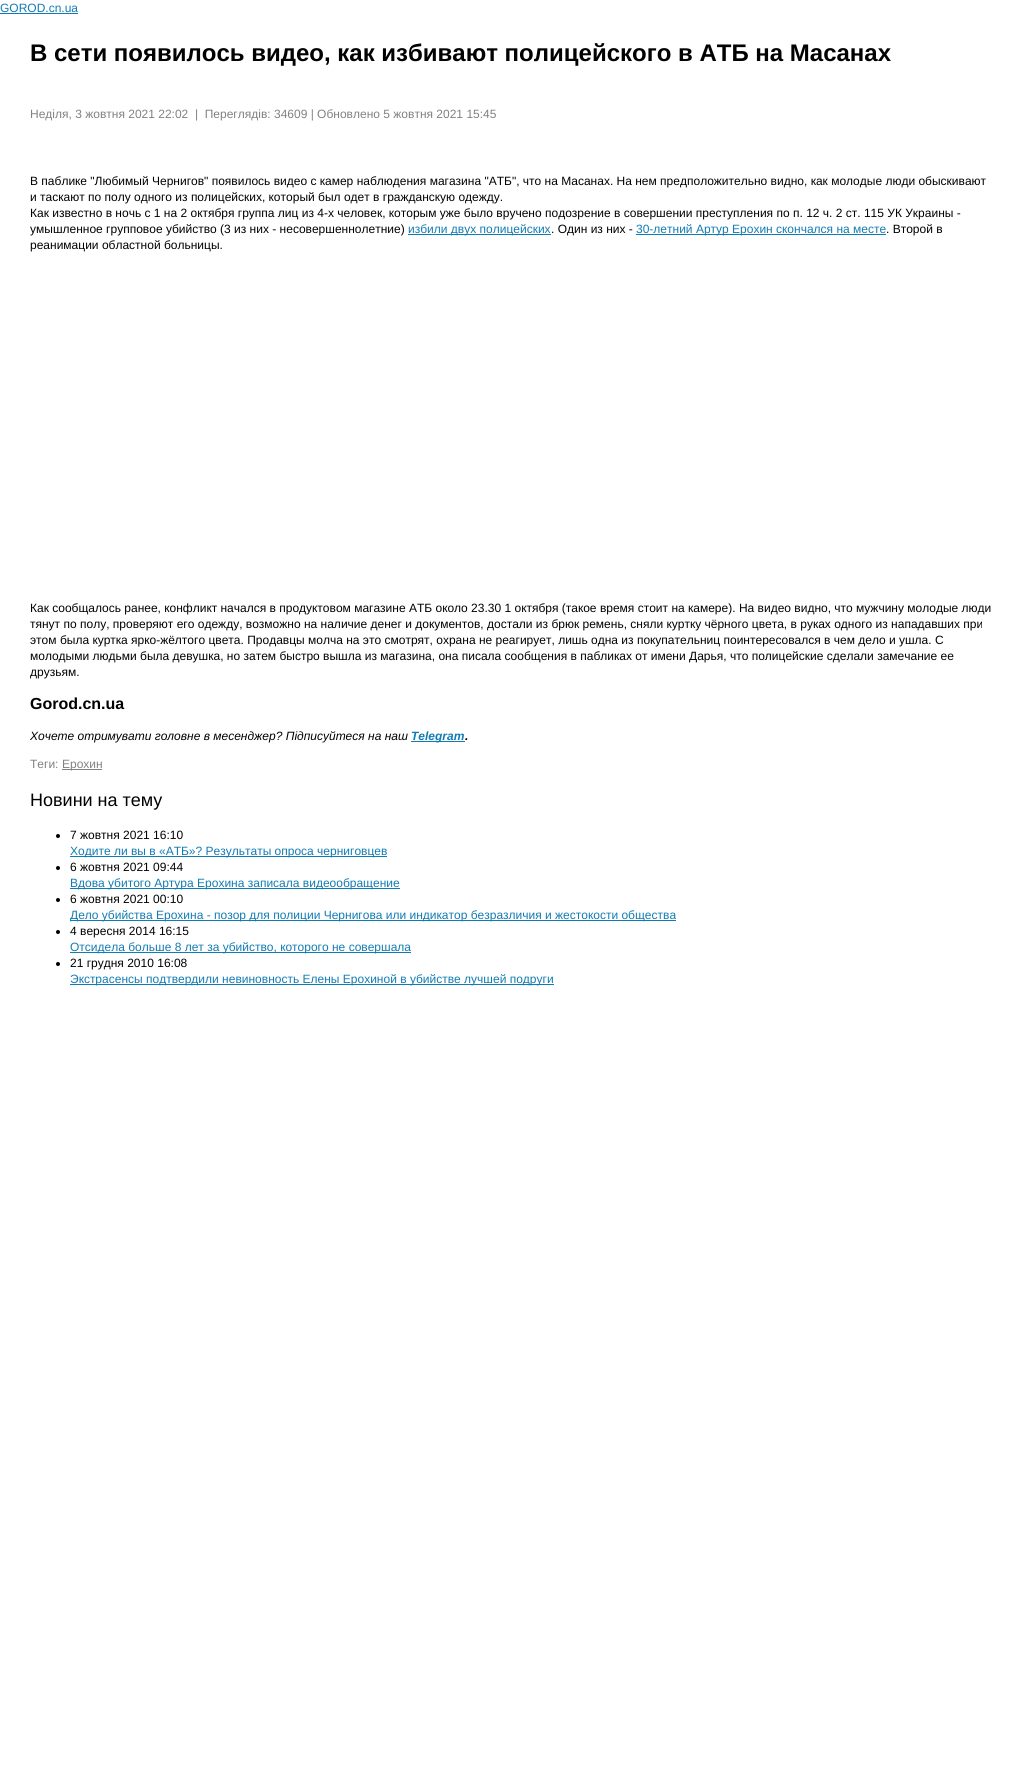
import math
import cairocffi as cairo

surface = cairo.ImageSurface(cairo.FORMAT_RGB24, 1022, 1785)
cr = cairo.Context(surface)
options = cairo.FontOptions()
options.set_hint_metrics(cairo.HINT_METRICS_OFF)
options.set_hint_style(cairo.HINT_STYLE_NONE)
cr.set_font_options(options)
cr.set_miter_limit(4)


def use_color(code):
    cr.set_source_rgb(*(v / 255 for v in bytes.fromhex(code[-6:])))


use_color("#ffffff")
cr.paint()
cr.select_font_face("Liberation Sans")
cr.set_font_size(12)
use_color("#117cb3")
cr.move_to(0, 12)
cr.show_text("GOROD.cn.ua")
cr.rectangle(0, 13, 78, 1)
cr.fill()
cr.select_font_face("Liberation Sans", cairo.FONT_SLANT_NORMAL, cairo.FONT_WEIGHT_BOLD)
cr.set_font_size(24)
use_color("#010101")
cr.move_to(30, 61)
cr.show_text("В сети появилось видео, как избивают полицейского в АТБ на Масанах")
cr.select_font_face("Liberation Sans")
cr.set_font_size(12)
use_color("#818181")
cr.move_to(30, 118)
cr.show_text("Неділя, 3 жовтня 2021 22:02  |  Переглядів: 34609 | Обновлено 5 жовтня 2021 15:45")
use_color("#010101")
cr.move_to(30, 185)
cr.show_text("В паблике \"Любимый Чернигов\" появилось видео с камер наблюдения магазина \"АТБ\", что на Масанах. На нем предположительно видно, как молодые люди обыскивают")
cr.move_to(30, 201)
cr.show_text("и таскают по полу одного из полицейских, который был одет в гражданскую одежду.")
cr.move_to(30, 217)
cr.show_text("Как известно в ночь с 1 на 2 октября группа лиц из 4-х человек, которым уже было вручено подозрение в совершении преступления по п. 12 ч. 2 ст. 115 УК Украины -")
cr.move_to(30, 233)
cr.show_text("умышленное групповое убийство (3 из них - несовершеннолетние)")
use_color("#117cb3")
cr.rectangle(408, 234, 143, 1)
cr.fill()
cr.move_to(408, 233)
cr.show_text("избили двух полицейских")
use_color("#010101")
cr.move_to(551, 233)
cr.show_text(". Один из них -")
use_color("#117cb3")
cr.rectangle(636, 234, 250, 1)
cr.fill()
cr.move_to(636, 233)
cr.show_text("30-летний Артур Ерохин скончался на месте")
use_color("#010101")
cr.move_to(886, 233)
cr.show_text(". Второй в")
cr.move_to(30, 249)
cr.show_text("реанимации областной больницы.")
cr.move_to(30, 612)
cr.show_text("Как сообщалось ранее, конфликт начался в продуктовом магазине АТБ около 23.30 1 октября (такое время стоит на камере). На видео видно, что мужчину молодые люди")
cr.move_to(30, 628)
cr.show_text("тянут по полу, проверяют его одежду, возможно на наличие денег и документов, достали из брюк ремень, сняли куртку чёрного цвета, в руках одного из нападавших при")
cr.move_to(30, 644)
cr.show_text("этом была куртка ярко-жёлтого цвета. Продавцы молча на это смотрят, охрана не реагирует, лишь одна из покупательниц поинтересовался в чем дело и ушла. С")
cr.move_to(30, 660)
cr.show_text("молодыми людьми была девушка, но затем быстро вышла из магазина, она писала сообщения в пабликах от имени Дарья, что полицейские сделали замечание ее")
cr.move_to(30, 676)
cr.show_text("друзьям.")
cr.select_font_face("Liberation Sans", cairo.FONT_SLANT_NORMAL, cairo.FONT_WEIGHT_BOLD)
cr.set_font_size(16)
cr.move_to(30, 709)
cr.show_text("Gorod.cn.ua")
cr.select_font_face("Liberation Sans", cairo.FONT_SLANT_ITALIC)
cr.set_font_size(12)
cr.move_to(30, 740)
cr.show_text("Хочете отримувати головне в месенджер? Підписуйтеся на наш")
use_color("#117cb3")
cr.rectangle(411, 741, 54, 1)
cr.fill()
cr.select_font_face("Liberation Sans", cairo.FONT_SLANT_ITALIC, cairo.FONT_WEIGHT_BOLD)
cr.move_to(411, 740)
cr.show_text("Telegram")
use_color("#010101")
cr.move_to(465, 740)
cr.show_text(".")
cr.select_font_face("Liberation Sans")
use_color("#818181")
cr.move_to(30, 768)
cr.show_text("Теги:")
cr.rectangle(62, 769, 40, 1)
cr.fill()
cr.move_to(62, 768)
cr.show_text("Ерохин")
cr.set_font_size(18)
use_color("#010101")
cr.move_to(30, 806)
cr.show_text("Новини на тему")
use_color("#000000")
cr.new_path()
cr.arc(58, 836, 2, 0, 2 * math.pi)
cr.fill()
cr.set_font_size(12)
use_color("#010101")
cr.move_to(70, 839)
cr.show_text("7 жовтня 2021 16:10")
use_color("#117cb3")
cr.rectangle(70, 856, 317, 1)
cr.fill()
cr.move_to(70, 855)
cr.show_text("Ходите ли вы в «АТБ»? Результаты опроса черниговцев")
use_color("#000000")
cr.new_path()
cr.arc(58, 868, 2, 0, 2 * math.pi)
cr.fill()
use_color("#010101")
cr.move_to(70, 871)
cr.show_text("6 жовтня 2021 09:44")
use_color("#117cb3")
cr.rectangle(70, 888, 330, 1)
cr.fill()
cr.move_to(70, 887)
cr.show_text("Вдова убитого Артура Ерохина записала видеообращение")
use_color("#000000")
cr.new_path()
cr.arc(58, 900, 2, 0, 2 * math.pi)
cr.fill()
use_color("#010101")
cr.move_to(70, 903)
cr.show_text("6 жовтня 2021 00:10")
use_color("#117cb3")
cr.rectangle(70, 920, 606, 1)
cr.fill()
cr.move_to(70, 919)
cr.show_text("Дело убийства Ерохина - позор для полиции Чернигова или индикатор безразличия и жестокости общества")
use_color("#000000")
cr.new_path()
cr.arc(58, 932, 2, 0, 2 * math.pi)
cr.fill()
use_color("#010101")
cr.move_to(70, 935)
cr.show_text("4 вересня 2014 16:15")
use_color("#117cb3")
cr.rectangle(70, 952, 341, 1)
cr.fill()
cr.move_to(70, 951)
cr.show_text("Отсидела больше 8 лет за убийство, которого не совершала")
use_color("#000000")
cr.new_path()
cr.arc(58, 964, 2, 0, 2 * math.pi)
cr.fill()
use_color("#010101")
cr.move_to(70, 967)
cr.show_text("21 грудня 2010 16:08")
use_color("#117cb3")
cr.rectangle(70, 984, 484, 1)
cr.fill()
cr.move_to(70, 983)
cr.show_text("Экстрасенсы подтвердили невиновность Елены Ерохиной в убийстве лучшей подруги")
surface.write_to_png("result.png")
